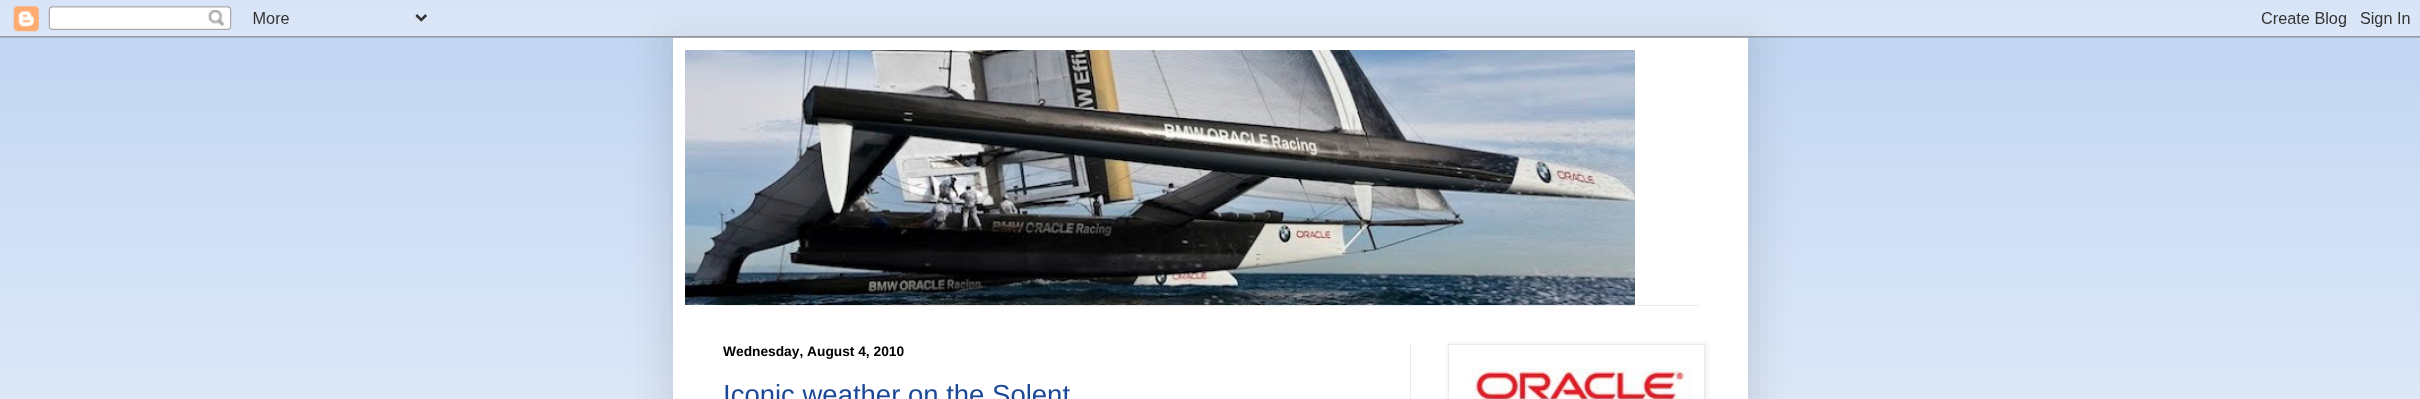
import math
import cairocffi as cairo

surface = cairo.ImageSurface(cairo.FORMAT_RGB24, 2420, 399)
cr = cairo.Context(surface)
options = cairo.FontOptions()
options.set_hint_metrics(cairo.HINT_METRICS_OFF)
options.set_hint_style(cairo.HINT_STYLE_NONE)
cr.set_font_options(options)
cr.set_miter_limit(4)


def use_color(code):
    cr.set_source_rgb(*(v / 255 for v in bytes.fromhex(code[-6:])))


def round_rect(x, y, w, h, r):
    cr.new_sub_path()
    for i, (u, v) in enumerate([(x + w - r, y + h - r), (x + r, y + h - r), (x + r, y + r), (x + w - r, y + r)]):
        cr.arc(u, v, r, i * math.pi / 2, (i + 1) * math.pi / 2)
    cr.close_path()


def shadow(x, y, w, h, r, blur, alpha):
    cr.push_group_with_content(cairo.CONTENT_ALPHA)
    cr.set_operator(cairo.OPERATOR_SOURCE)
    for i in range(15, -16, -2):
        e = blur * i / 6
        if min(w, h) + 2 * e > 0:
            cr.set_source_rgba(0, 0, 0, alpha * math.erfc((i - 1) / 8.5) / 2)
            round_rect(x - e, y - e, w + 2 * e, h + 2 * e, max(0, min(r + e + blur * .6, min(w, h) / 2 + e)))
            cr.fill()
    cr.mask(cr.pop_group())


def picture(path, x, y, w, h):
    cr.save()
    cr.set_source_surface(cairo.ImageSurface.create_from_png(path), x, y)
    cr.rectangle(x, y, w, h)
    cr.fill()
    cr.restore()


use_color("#bcd2f1")
cr.paint()
picture("img2.png", 0, 9, 2420, 390)
use_color("#000000")
shadow(673, 38, 1075, 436, 0, 25, 0.15)
picture("img1.png", 0, 0, 2420, 38)
use_color("#ffffff")
cr.rectangle(673, 38, 1075, 361)
cr.fill()
picture("img3.png", 685, 50, 950, 255)
use_color("#eaeaea")
cr.rectangle(723, 305, 975, 1)
cr.fill()
cr.select_font_face("Liberation Sans", cairo.FONT_SLANT_NORMAL, cairo.FONT_WEIGHT_BOLD)
cr.set_font_size(13.75)
use_color("#000000")
cr.move_to(723, 356)
cr.show_text("Wednesday, August 4, 2010")
cr.select_font_face("Liberation Sans")
cr.set_font_size(27.5)
use_color("#1b4997")
cr.move_to(723, 404)
cr.show_text("Iconic weather on the Solent")
cr.save()
cr.set_fill_rule(cairo.FILL_RULE_EVEN_ODD)
cr.new_path()
cr.move_to(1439, 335)
cr.line_to(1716, 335)
cr.line_to(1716, 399)
cr.line_to(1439, 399)
cr.close_path()
cr.move_to(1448, 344)
cr.line_to(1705, 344)
cr.line_to(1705, 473)
cr.line_to(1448, 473)
cr.close_path()
cr.clip()
use_color("#000000")
shadow(1449, 345, 257, 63, 0, 3, 0.1)
cr.restore()
cr.rectangle(1448.5, 344.5, 256, 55)
use_color("#eaeaea")
cr.set_line_width(1)
cr.stroke()
picture("img4.png", 1471, 367, 220, 32)
cr.rectangle(1410, 344, 1, 55)
cr.fill()
surface.write_to_png("result.png")
